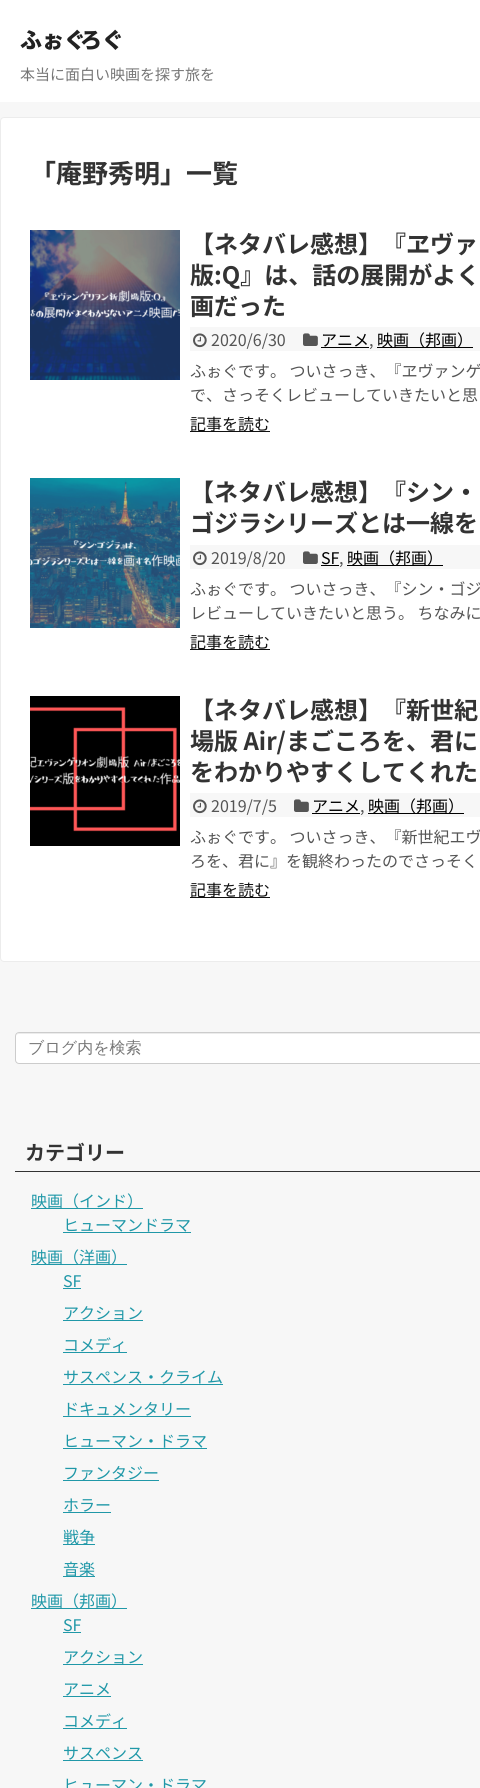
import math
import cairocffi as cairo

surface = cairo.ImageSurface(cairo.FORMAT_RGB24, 480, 1788)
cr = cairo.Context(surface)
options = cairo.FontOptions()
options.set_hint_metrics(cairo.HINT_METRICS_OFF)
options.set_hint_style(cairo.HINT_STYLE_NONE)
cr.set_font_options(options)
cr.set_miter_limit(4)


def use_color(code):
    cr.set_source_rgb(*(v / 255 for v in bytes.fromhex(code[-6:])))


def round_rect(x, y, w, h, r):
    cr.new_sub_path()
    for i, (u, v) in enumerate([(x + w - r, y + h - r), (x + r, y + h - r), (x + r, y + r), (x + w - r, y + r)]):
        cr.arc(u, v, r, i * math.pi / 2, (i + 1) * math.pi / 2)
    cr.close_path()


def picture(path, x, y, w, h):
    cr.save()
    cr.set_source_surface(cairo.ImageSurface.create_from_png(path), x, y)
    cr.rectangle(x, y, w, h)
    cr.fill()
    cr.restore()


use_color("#f7f7f7")
cr.paint()
use_color("#ffffff")
cr.rectangle(0, 0, 480, 102)
cr.fill()
cr.select_font_face("Noto Sans JP Black")
cr.set_font_size(22)
use_color("#222222")
cr.move_to(20, 48)
cr.show_text("ふぉぐ")
cr.move_to(80, 48)
cr.show_text("ろぐ")
cr.select_font_face("Noto Sans JP")
cr.set_font_size(15)
use_color("#777777")
cr.move_to(20, 80)
cr.show_text("本当に面白い映画を探す旅を")
use_color("#ffffff")
round_rect(0.5, 117.5, 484, 844, 3.5)
cr.fill_preserve()
use_color("#ececec")
cr.set_line_width(1)
cr.stroke()
cr.select_font_face("Noto Sans JP", cairo.FONT_SLANT_NORMAL, cairo.FONT_WEIGHT_BOLD)
cr.set_font_size(26)
use_color("#333333")
cr.move_to(30, 183)
cr.show_text("「庵野秀明」一覧")
picture("img1.png", 30, 230, 150, 150)
cr.set_font_size(24)
cr.move_to(190, 253)
cr.show_text("【ネタバレ感想】『ヱヴァ")
cr.move_to(190, 284)
cr.show_text("版:Q』は、話の展開がよく")
cr.move_to(190, 315)
cr.show_text("画だった")
use_color("#f7f7f7")
cr.rectangle(190, 327, 290, 24)
cr.fill()
picture("img2.png", 193, 333, 14, 15)
cr.select_font_face("Noto Sans JP")
cr.set_font_size(16)
use_color("#555555")
cr.move_to(211, 346)
cr.show_text("2020/6/30")
picture("img3.png", 303, 333, 15, 13)
use_color("#000000")
cr.move_to(321, 346)
cr.show_text("アニメ")
cr.rectangle(321, 347, 48, 1)
cr.fill()
use_color("#555555")
cr.move_to(369, 346)
cr.show_text(",")
use_color("#000000")
cr.rectangle(377, 347, 96, 1)
cr.fill()
cr.move_to(377, 346)
cr.show_text("映画（邦画）")
use_color("#555555")
cr.move_to(190, 377)
cr.show_text("ふぉぐです。 ついさっき、『ヱヴァンゲ")
cr.move_to(190, 401)
cr.show_text("で、さっそくレビューしていきたいと思")
use_color("#111111")
cr.rectangle(190, 431, 80, 1)
cr.fill()
cr.move_to(190, 430)
cr.show_text("記事を読む")
picture("img4.png", 30, 478, 150, 150)
cr.select_font_face("Noto Sans JP", cairo.FONT_SLANT_NORMAL, cairo.FONT_WEIGHT_BOLD)
cr.set_font_size(24)
use_color("#333333")
cr.move_to(190, 501)
cr.show_text("【ネタバレ感想】『シン・")
cr.move_to(190, 532)
cr.show_text("ゴジラシリーズとは一線を")
use_color("#f7f7f7")
cr.rectangle(190, 545, 290, 24)
cr.fill()
picture("img2.png", 193, 551, 14, 15)
cr.select_font_face("Noto Sans JP")
cr.set_font_size(16)
use_color("#555555")
cr.move_to(211, 564)
cr.show_text("2019/8/20")
picture("img3.png", 303, 551, 15, 13)
use_color("#000000")
cr.move_to(321, 564)
cr.show_text("SF")
cr.rectangle(321, 565, 18, 1)
cr.fill()
use_color("#555555")
cr.move_to(339, 564)
cr.show_text(",")
use_color("#000000")
cr.rectangle(347, 565, 96, 1)
cr.fill()
cr.move_to(347, 564)
cr.show_text("映画（邦画）")
use_color("#555555")
cr.move_to(190, 595)
cr.show_text("ふぉぐです。 ついさっき、『シン・ゴジ")
cr.move_to(190, 619)
cr.show_text("レビューしていきたいと思う。 ちなみに")
use_color("#111111")
cr.rectangle(190, 649, 80, 1)
cr.fill()
cr.move_to(190, 648)
cr.show_text("記事を読む")
picture("img5.png", 30, 696, 150, 150)
cr.select_font_face("Noto Sans JP", cairo.FONT_SLANT_NORMAL, cairo.FONT_WEIGHT_BOLD)
cr.set_font_size(24)
use_color("#333333")
cr.move_to(190, 719)
cr.show_text("【ネタバレ感想】『新世紀")
cr.move_to(190, 750)
cr.show_text("場版 Air/まごころを、君に")
cr.move_to(190, 781)
cr.show_text("をわかりやすくしてくれた")
use_color("#f7f7f7")
cr.rectangle(190, 793, 290, 24)
cr.fill()
picture("img2.png", 193, 799, 14, 15)
cr.select_font_face("Noto Sans JP")
cr.set_font_size(16)
use_color("#555555")
cr.move_to(211, 812)
cr.show_text("2019/7/5")
picture("img3.png", 294, 799, 15, 13)
use_color("#000000")
cr.move_to(312, 812)
cr.show_text("アニメ")
cr.rectangle(312, 813, 48, 1)
cr.fill()
use_color("#555555")
cr.move_to(360, 812)
cr.show_text(",")
use_color("#000000")
cr.rectangle(368, 813, 96, 1)
cr.fill()
cr.move_to(368, 812)
cr.show_text("映画（邦画）")
use_color("#555555")
cr.move_to(190, 843)
cr.show_text("ふぉぐです。 ついさっき、『新世紀エヴ")
cr.move_to(190, 867)
cr.show_text("ろを、君に』を観終わったのでさっそく")
use_color("#111111")
cr.rectangle(190, 897, 80, 1)
cr.fill()
cr.move_to(190, 896)
cr.show_text("記事を読む")
use_color("#ffffff")
round_rect(15, 1032, 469, 32, 4)
cr.fill()
use_color("#ececec")
cr.new_path()
cr.move_to(19, 1034)
cr.line_to(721, 1034)
cr.curve_to(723, 1034, 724, 1035, 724, 1037)
cr.curve_to(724, 1035, 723, 1033, 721, 1033)
cr.line_to(19, 1033)
cr.curve_to(17, 1033, 16, 1035, 16, 1037)
cr.curve_to(16, 1035, 17, 1034, 19, 1034)
cr.close_path()
cr.fill()
round_rect(15.5, 1032.5, 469, 31, 3.5)
use_color("#cccccc")
cr.stroke()
cr.select_font_face("WenQuanYi Zen Hei Medium")
use_color("#777777")
cr.move_to(28, 1053)
cr.show_text("ブログ内を検索")
use_color("#333333")
cr.rectangle(15, 1171, 465, 1)
cr.fill()
cr.select_font_face("Noto Sans JP", cairo.FONT_SLANT_NORMAL, cairo.FONT_WEIGHT_BOLD)
cr.set_font_size(20)
cr.move_to(25, 1160)
cr.show_text("カテゴリー")
use_color("#2098a8")
cr.rectangle(31, 1208, 112, 1)
cr.fill()
cr.select_font_face("Noto Sans JP")
cr.set_font_size(16)
cr.move_to(31, 1207)
cr.show_text("映画（インド）")
cr.move_to(63, 1231)
cr.show_text("ヒューマンドラマ")
cr.rectangle(63, 1232, 128, 1)
cr.fill()
cr.rectangle(31, 1264, 96, 1)
cr.fill()
cr.move_to(31, 1263)
cr.show_text("映画（洋画）")
cr.move_to(63, 1287)
cr.show_text("SF")
cr.rectangle(63, 1288, 18, 1)
cr.fill()
cr.move_to(63, 1319)
cr.show_text("アクション")
cr.rectangle(63, 1320, 80, 1)
cr.fill()
cr.rectangle(63, 1352, 64, 1)
cr.fill()
cr.move_to(63, 1351)
cr.show_text("コメディ")
cr.move_to(63, 1383)
cr.show_text("サスペンス・クライム")
cr.rectangle(63, 1384, 160, 1)
cr.fill()
cr.move_to(63, 1415)
cr.show_text("ドキュメンタリー")
cr.rectangle(63, 1416, 128, 1)
cr.fill()
cr.move_to(63, 1447)
cr.show_text("ヒューマン・ドラマ")
cr.rectangle(63, 1448, 144, 1)
cr.fill()
cr.rectangle(63, 1480, 96, 1)
cr.fill()
cr.move_to(63, 1479)
cr.show_text("ファンタジー")
cr.move_to(63, 1511)
cr.show_text("ホラー")
cr.rectangle(63, 1512, 48, 1)
cr.fill()
cr.rectangle(63, 1544, 32, 1)
cr.fill()
cr.move_to(63, 1543)
cr.show_text("戦争")
cr.rectangle(63, 1576, 32, 1)
cr.fill()
cr.move_to(63, 1575)
cr.show_text("音楽")
cr.rectangle(31, 1608, 96, 1)
cr.fill()
cr.move_to(31, 1607)
cr.show_text("映画（邦画）")
cr.move_to(63, 1631)
cr.show_text("SF")
cr.rectangle(63, 1632, 18, 1)
cr.fill()
cr.move_to(63, 1663)
cr.show_text("アクション")
cr.rectangle(63, 1664, 80, 1)
cr.fill()
cr.move_to(63, 1695)
cr.show_text("アニメ")
cr.rectangle(63, 1696, 48, 1)
cr.fill()
cr.rectangle(63, 1728, 64, 1)
cr.fill()
cr.move_to(63, 1727)
cr.show_text("コメディ")
cr.move_to(63, 1759)
cr.show_text("サスペンス")
cr.rectangle(63, 1760, 80, 1)
cr.fill()
cr.move_to(63, 1791)
cr.show_text("ヒューマン・ドラマ")
surface.write_to_png("result.png")
